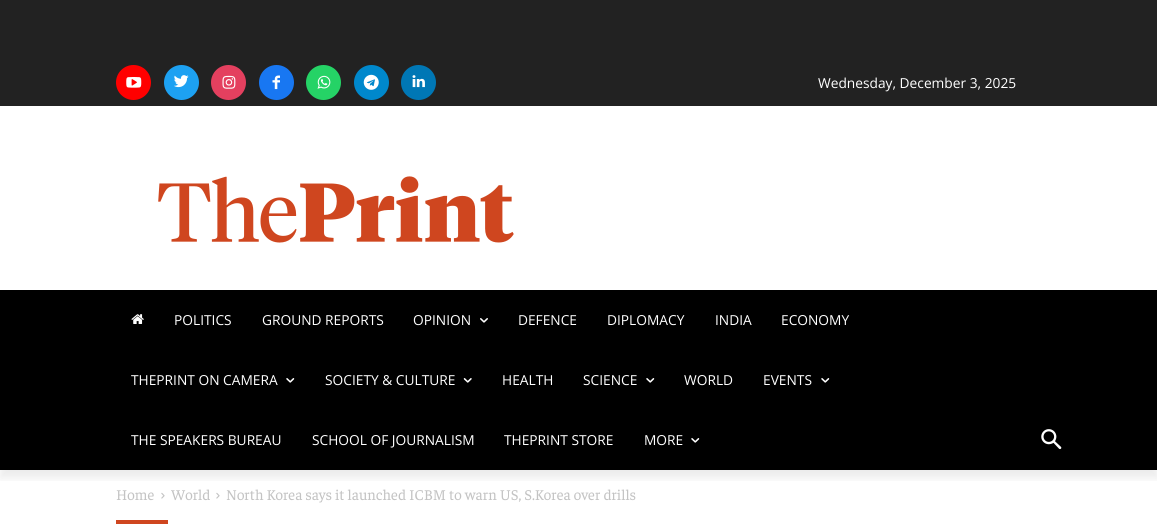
import math
import cairocffi as cairo

surface = cairo.ImageSurface(cairo.FORMAT_RGB24, 1157, 524)
cr = cairo.Context(surface)
options = cairo.FontOptions()
options.set_hint_metrics(cairo.HINT_METRICS_OFF)
options.set_hint_style(cairo.HINT_STYLE_NONE)
cr.set_font_options(options)
cr.set_miter_limit(4)


def use_color(code):
    cr.set_source_rgb(*(v / 255 for v in bytes.fromhex(code[-6:])))


def round_rect(x, y, w, h, r):
    cr.new_sub_path()
    for i, (u, v) in enumerate([(x + w - r, y + h - r), (x + r, y + h - r), (x + r, y + r), (x + w - r, y + r)]):
        cr.arc(u, v, r, i * math.pi / 2, (i + 1) * math.pi / 2)
    cr.close_path()


def shadow(x, y, w, h, r, blur, alpha):
    cr.push_group_with_content(cairo.CONTENT_ALPHA)
    cr.set_operator(cairo.OPERATOR_SOURCE)
    for i in range(15, -16, -2):
        e = blur * i / 6
        if min(w, h) + 2 * e > 0:
            cr.set_source_rgba(0, 0, 0, alpha * math.erfc((i - 1) / 8.5) / 2)
            round_rect(x - e, y - e, w + 2 * e, h + 2 * e, max(0, min(r + e + blur * .6, min(w, h) / 2 + e)))
            cr.fill()
    cr.mask(cr.pop_group())


def picture(path, x, y, w, h):
    cr.save()
    cr.set_source_surface(cairo.ImageSurface.create_from_png(path), x, y)
    cr.rectangle(x, y, w, h)
    cr.fill()
    cr.restore()


use_color("#ffffff")
cr.paint()
use_color("#222222")
cr.rectangle(0, 0, 1157, 106)
cr.fill()
use_color("#ff0000")
cr.arc(133.5, 82.5, 17.5, 0, 2 * math.pi)
cr.fill()
picture("img1.png", 126, 77, 16, 11)
use_color("#1da1f2")
cr.arc(181.5, 82.5, 17.5, 0, 2 * math.pi)
cr.fill()
picture("img2.png", 174, 75, 15, 13)
use_color("#e4405f")
cr.arc(228.5, 82.5, 17.5, 0, 2 * math.pi)
cr.fill()
picture("img3.png", 222, 75, 14, 14)
use_color("#1877f2")
cr.arc(276.5, 82.5, 17.5, 0, 2 * math.pi)
cr.fill()
picture("img4.png", 272, 75, 8, 15)
use_color("#25d366")
cr.arc(323.5, 82.5, 17.5, 0, 2 * math.pi)
cr.fill()
picture("img5.png", 317, 75, 14, 14)
use_color("#0088cc")
cr.arc(371.5, 82.5, 17.5, 0, 2 * math.pi)
cr.fill()
picture("img6.png", 363, 74, 16, 16)
use_color("#0077b5")
cr.arc(418.5, 82.5, 17.5, 0, 2 * math.pi)
cr.fill()
picture("img7.png", 412, 75, 13, 13)
picture("img8.png", 158, 176, 356, 67)
use_color("#000000")
cr.rectangle(0, 290, 1157, 180)
cr.fill()
picture("img14.png", 161, 492, 4, 7)
picture("img14.png", 216, 492, 4, 7)
cr.save()
cr.rectangle(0, 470, 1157, 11)
cr.clip()
use_color("#000000")
shadow(0, 8, 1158, 470, 0, 5, 0.08)
cr.restore()
cr.select_font_face("Open Sans")
cr.set_font_size(13.75)
use_color("#ffffff")
cr.move_to(818, 88)
cr.show_text("Wednesday, December 3, 2025")
picture("img9.png", 131, 314, 13, 10)
cr.move_to(174, 325)
cr.show_text("POLITICS")
cr.move_to(262, 325)
cr.show_text("GROUND REPORTS")
cr.move_to(413, 325)
cr.show_text("OPINION")
picture("img10.png", 480, 318, 8, 5)
cr.move_to(518, 325)
cr.show_text("DEFENCE")
cr.move_to(607, 325)
cr.show_text("DIPLOMACY")
cr.move_to(715, 325)
cr.show_text("INDIA")
cr.move_to(781, 325)
cr.show_text("ECONOMY")
cr.move_to(131, 385)
cr.show_text("THEPRINT ON CAMERA")
picture("img11.png", 286, 378, 9, 5)
cr.move_to(325, 385)
cr.show_text("SOCIETY & CULTURE")
picture("img12.png", 463, 378, 9, 5)
cr.move_to(502, 385)
cr.show_text("HEALTH")
cr.move_to(583, 385)
cr.show_text("SCIENCE")
picture("img11.png", 646, 378, 9, 5)
cr.move_to(684, 385)
cr.show_text("WORLD")
cr.move_to(763, 385)
cr.show_text("EVENTS")
picture("img11.png", 821, 378, 9, 5)
cr.move_to(131, 445)
cr.show_text("THE SPEAKERS BUREAU")
cr.move_to(312, 445)
cr.show_text("SCHOOL OF JOURNALISM")
cr.move_to(504, 445)
cr.show_text("THEPRINT STORE")
cr.move_to(644, 445)
cr.show_text("MORE")
picture("img11.png", 691, 438, 9, 5)
picture("img13.png", 1041, 429, 21, 21)
cr.select_font_face("Faustina")
cr.set_font_size(15)
use_color("#c3c3c3")
cr.move_to(116, 500)
cr.show_text("Home")
cr.move_to(171, 500)
cr.show_text("World")
cr.move_to(226, 500)
cr.show_text("North Korea says it launched ICBM to warn US, S.Korea over drills")
use_color("#cf461f")
cr.rectangle(116, 520, 52, 4)
cr.fill()
surface.write_to_png("result.png")
